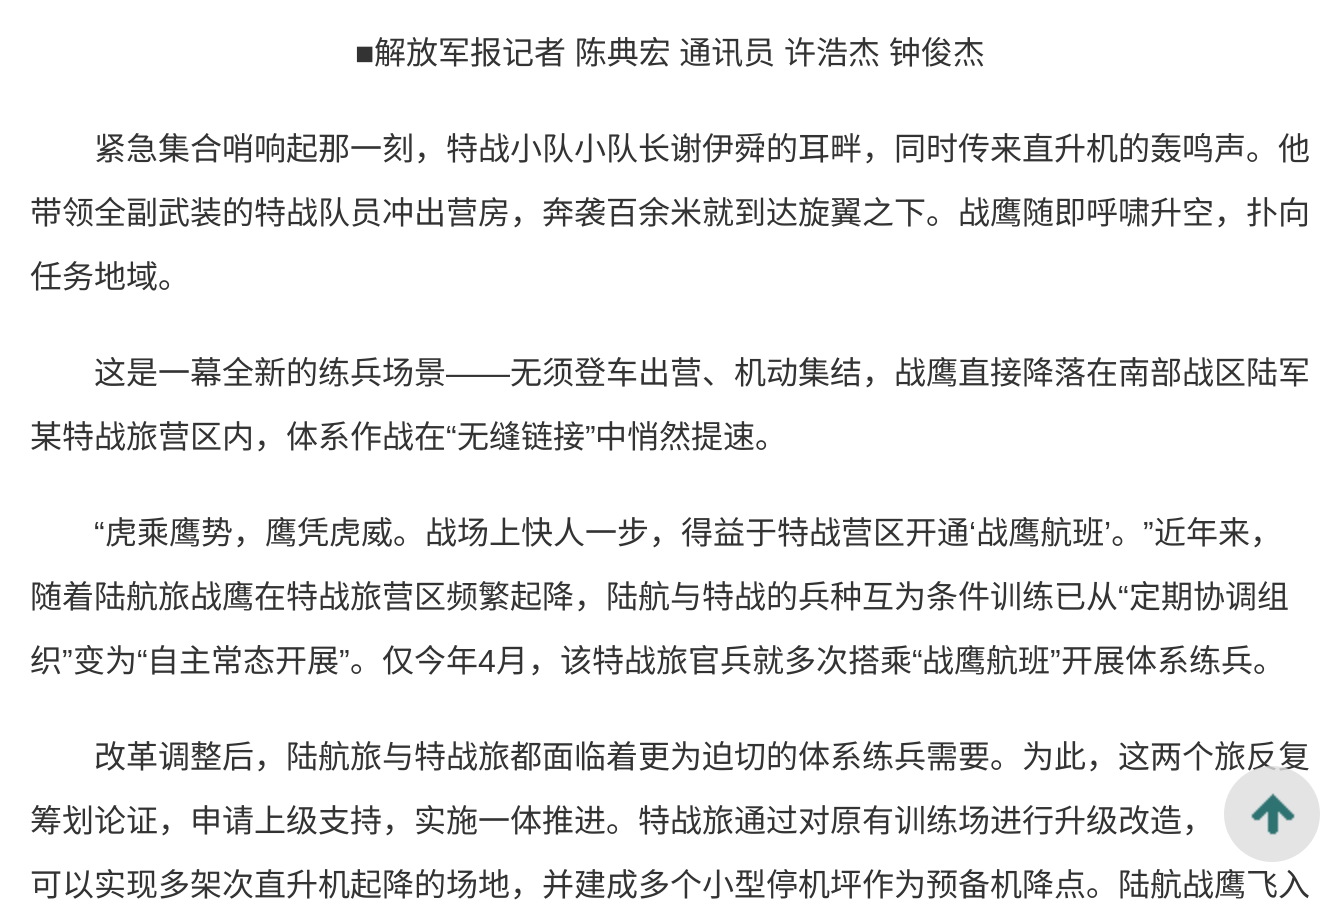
import math
import cairocffi as cairo

surface = cairo.ImageSurface(cairo.FORMAT_RGB24, 1339, 921)
cr = cairo.Context(surface)
options = cairo.FontOptions()
options.set_hint_metrics(cairo.HINT_METRICS_OFF)
options.set_hint_style(cairo.HINT_STYLE_NONE)
cr.set_font_options(options)
cr.set_miter_limit(4)


def use_color(code):
    cr.set_source_rgb(*(v / 255 for v in bytes.fromhex(code[-6:])))


def spaced_text(x, y, s, letter, word):
    cr.move_to(x, y)
    for ch in s:
        cr.show_text(ch)
        cr.rel_move_to(letter + word * (ch == ' '), 0)


def picture(path, x, y, w, h):
    cr.save()
    cr.set_source_surface(cairo.ImageSurface.create_from_png(path), x, y)
    cr.rectangle(x, y, w, h)
    cr.fill()
    cr.restore()


use_color("#ffffff")
cr.paint()
cr.select_font_face("Liberation Sans")
cr.set_font_size(32)
use_color("#333333")
cr.move_to(355, 64)
cr.show_text("■")
cr.select_font_face("Noto Sans CJK SC")
spaced_text(374, 64, "解放军报记者 陈典宏 通讯员 许浩杰 钟俊杰", 0, 1.5)
cr.move_to(94, 160)
cr.show_text("紧急集合哨响起那一刻，特战小队小队长谢伊舜的耳畔，同时传来直升机的轰鸣声。他")
cr.move_to(30, 224)
cr.show_text("带领全副武装的特战队员冲出营房，奔袭百余米就到达旋翼之下。战鹰随即呼啸升空，扑向")
cr.move_to(30, 288)
cr.show_text("任务地域。")
cr.move_to(94, 384)
cr.show_text("这是一幕全新的练兵场景")
cr.select_font_face("Liberation Sans")
cr.move_to(446, 384)
cr.show_text("——")
cr.select_font_face("Noto Sans CJK SC")
cr.move_to(510, 384)
cr.show_text("无须登车出营、机动集结，战鹰直接降落在南部战区陆军")
cr.move_to(30, 448)
cr.show_text("某特战旅营区内，体系作战在")
cr.select_font_face("Liberation Sans")
cr.move_to(446, 448)
cr.show_text("“")
cr.select_font_face("Noto Sans CJK SC")
cr.move_to(457, 448)
cr.show_text("无缝链接")
cr.select_font_face("Liberation Sans")
cr.move_to(585, 448)
cr.show_text("”")
cr.select_font_face("Noto Sans CJK SC")
cr.move_to(595, 448)
cr.show_text("中悄然提速。")
cr.select_font_face("Liberation Sans")
cr.move_to(94, 544)
cr.show_text("“")
cr.select_font_face("Noto Sans CJK SC")
cr.move_to(105, 544)
cr.show_text("虎乘鹰势，鹰凭虎威。战场上快人一步，得益于特战营区开通 战鹰航班 。")
cr.move_to(1154, 544)
cr.show_text("近年来，")
cr.select_font_face("Liberation Sans")
cr.move_to(969, 544)
cr.show_text("‘")
cr.move_to(1104, 544)
cr.show_text("’")
cr.move_to(1143, 544)
cr.show_text("”")
cr.select_font_face("Noto Sans CJK SC")
cr.move_to(30, 608)
cr.show_text("随着陆航旅战鹰在特战旅营区频繁起降，陆航与特战的兵种互为条件训练已从")
cr.select_font_face("Liberation Sans")
cr.move_to(1118, 608)
cr.show_text("“")
cr.select_font_face("Noto Sans CJK SC")
cr.move_to(1129, 608)
cr.show_text("定期协调组")
cr.move_to(30, 672)
cr.show_text("织")
cr.select_font_face("Liberation Sans")
cr.move_to(62, 672)
cr.show_text("”")
cr.select_font_face("Noto Sans CJK SC")
cr.move_to(73, 672)
cr.show_text("变为")
cr.select_font_face("Liberation Sans")
cr.move_to(137, 672)
cr.show_text("“")
cr.select_font_face("Noto Sans CJK SC")
cr.move_to(147, 672)
cr.show_text("自主常态开展")
cr.select_font_face("Liberation Sans")
cr.move_to(339, 672)
cr.show_text("”")
cr.select_font_face("Noto Sans CJK SC")
cr.move_to(350, 672)
cr.show_text("。仅今年")
cr.select_font_face("Liberation Sans")
cr.move_to(478, 672)
cr.show_text("4")
cr.select_font_face("Noto Sans CJK SC")
cr.move_to(496, 672)
cr.show_text("月，该特战旅官兵就多次搭乘")
cr.select_font_face("Liberation Sans")
cr.move_to(912, 672)
cr.show_text("“")
cr.select_font_face("Noto Sans CJK SC")
cr.move_to(922, 672)
cr.show_text("战鹰航班")
cr.select_font_face("Liberation Sans")
cr.move_to(1050, 672)
cr.show_text("”")
cr.select_font_face("Noto Sans CJK SC")
cr.move_to(1061, 672)
cr.show_text("开展体系练兵。")
cr.move_to(94, 768)
cr.show_text("改革调整后，陆航旅与特战旅都面临着更为迫切的体系练兵需要。为此，这两个旅反复")
cr.move_to(30, 832)
cr.show_text("筹划论证，申请上级支持，实施一体推进。特战旅通过对原有训练场进行升级改造，")
cr.move_to(30, 896)
cr.show_text("可以实现多架次直升机起降的场地，并建成多个小型停机坪作为预备机降点。陆航战鹰飞入")
cr.set_source_rgba(0.867, 0.867, 0.867, 0.8)
cr.new_path()
cr.arc(1272, 814, 48, 0, 2 * math.pi)
cr.fill()
picture("img1.png", 1251, 793, 44, 42)
surface.write_to_png("result.png")
